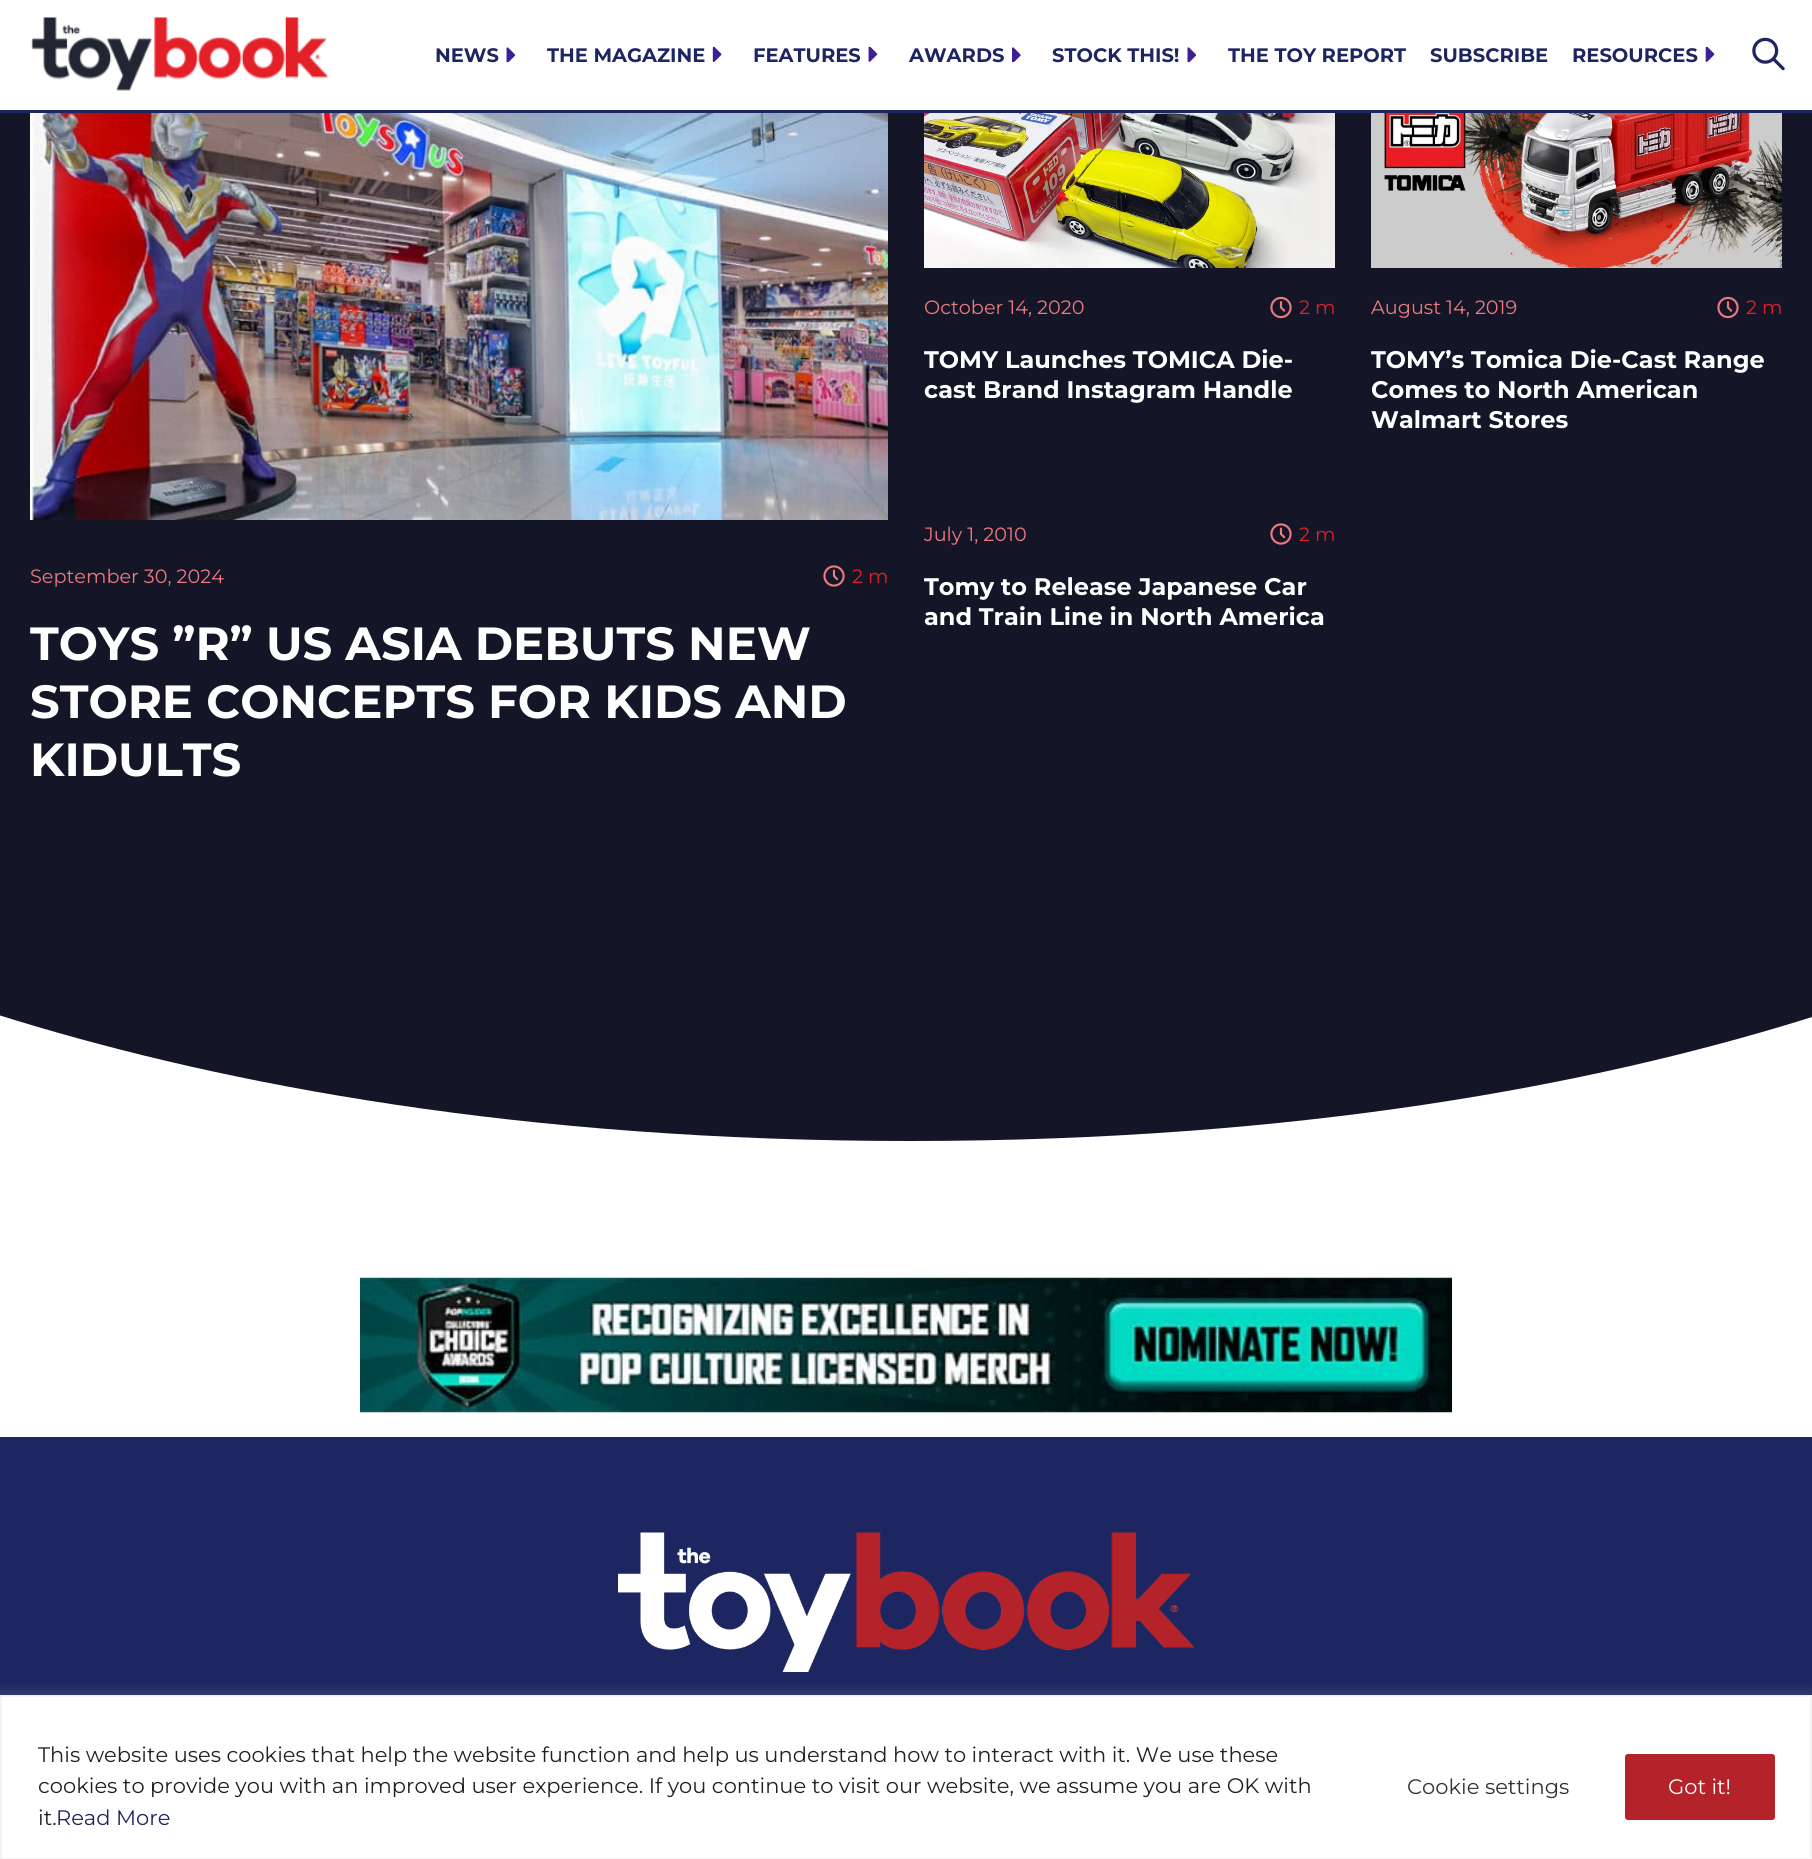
import math
import cairocffi as cairo

surface = cairo.ImageSurface(cairo.FORMAT_RGB24, 1812, 1859)
cr = cairo.Context(surface)
options = cairo.FontOptions()
options.set_hint_metrics(cairo.HINT_METRICS_OFF)
options.set_hint_style(cairo.HINT_STYLE_NONE)
cr.set_font_options(options)
cr.set_miter_limit(4)


def use_color(code):
    cr.set_source_rgb(*(v / 255 for v in bytes.fromhex(code[-6:])))


def round_rect(x, y, w, h, r):
    cr.new_sub_path()
    for i, (u, v) in enumerate([(x + w - r, y + h - r), (x + r, y + h - r), (x + r, y + r), (x + w - r, y + r)]):
        cr.arc(u, v, r, i * math.pi / 2, (i + 1) * math.pi / 2)
    cr.close_path()


def shadow(x, y, w, h, r, blur, alpha):
    cr.push_group_with_content(cairo.CONTENT_ALPHA)
    cr.set_operator(cairo.OPERATOR_SOURCE)
    for i in range(15, -16, -2):
        e = blur * i / 6
        if min(w, h) + 2 * e > 0:
            cr.set_source_rgba(0, 0, 0, alpha * math.erfc((i - 1) / 8.5) / 2)
            round_rect(x - e, y - e, w + 2 * e, h + 2 * e, max(0, min(r + e + blur * .6, min(w, h) / 2 + e)))
            cr.fill()
    cr.mask(cr.pop_group())


def picture(path, x, y, w, h):
    cr.save()
    cr.set_source_surface(cairo.ImageSurface.create_from_png(path), x, y)
    cr.rectangle(x, y, w, h)
    cr.fill()
    cr.restore()


use_color("#ffffff")
cr.paint()
use_color("#1d2661")
cr.rectangle(0, 110, 1812, 3)
cr.fill()
picture("img1.png", 31, 17, 298, 74)
picture("img2.png", 1752, 37, 33, 34)
cr.select_font_face("Montserrat", cairo.FONT_SLANT_NORMAL, cairo.FONT_WEIGHT_BOLD)
cr.set_font_size(19.5)
cr.move_to(435, 62)
cr.show_text("NEWS")
picture("img3.png", 506, 47, 10, 16)
cr.move_to(547, 62)
cr.show_text("THE MAGAZINE")
picture("img4.png", 712, 46, 10, 16)
cr.move_to(753, 62)
cr.show_text("FEATURES")
picture("img5.png", 868, 46, 10, 16)
cr.move_to(909, 62)
cr.show_text("AWARDS")
picture("img6.png", 1012, 47, 9, 16)
cr.move_to(1052, 62)
cr.show_text("STOCK THIS!")
picture("img7.png", 1187, 47, 10, 16)
cr.move_to(1228, 62)
cr.show_text("THE TOY REPORT")
cr.move_to(1430, 62)
cr.show_text("SUBSCRIBE")
cr.move_to(1572, 62)
cr.show_text("RESOURCES")
picture("img8.png", 1705, 46, 10, 16)
use_color("#141627")
cr.rectangle(0, 113, 1812, 849)
cr.fill()
picture("img9.png", 924, 113, 411, 155)
cr.select_font_face("Montserrat Thin")
cr.set_font_size(19.25)
use_color("#ee797e")
cr.move_to(924, 314)
cr.show_text("October 14, 2020")
picture("img10.png", 1270, 296, 22, 23)
use_color("#e32028")
cr.move_to(1299, 314)
cr.show_text("2 m")
cr.select_font_face("Montserrat", cairo.FONT_SLANT_NORMAL, cairo.FONT_WEIGHT_BOLD)
cr.set_font_size(24)
use_color("#ffffff")
cr.move_to(924, 368)
cr.show_text("TOMY Launches TOMICA Die-")
cr.move_to(924, 398)
cr.show_text("cast Brand Instagram Handle")
picture("img11.png", 1371, 113, 411, 155)
cr.select_font_face("Montserrat Thin")
cr.set_font_size(19.25)
use_color("#ee797e")
cr.move_to(1371, 314)
cr.show_text("August 14, 2019")
picture("img10.png", 1717, 296, 22, 23)
use_color("#e32028")
cr.move_to(1746, 314)
cr.show_text("2 m")
cr.select_font_face("Montserrat", cairo.FONT_SLANT_NORMAL, cairo.FONT_WEIGHT_BOLD)
cr.set_font_size(24)
use_color("#ffffff")
cr.move_to(1371, 368)
cr.show_text("TOMY’s Tomica Die-Cast Range")
cr.move_to(1371, 398)
cr.show_text("Comes to North American")
cr.move_to(1371, 428)
cr.show_text("Walmart Stores")
picture("img12.png", 30, 113, 858, 407)
cr.select_font_face("Montserrat Thin")
cr.set_font_size(19.25)
use_color("#ee797e")
cr.move_to(30, 583)
cr.show_text("September 30, 2024")
picture("img13.png", 823, 565, 22, 22)
use_color("#e32028")
cr.move_to(852, 583)
cr.show_text("2 m")
cr.select_font_face("Montserrat", cairo.FONT_SLANT_NORMAL, cairo.FONT_WEIGHT_BOLD)
cr.set_font_size(46.5)
use_color("#ffffff")
cr.move_to(30, 660)
cr.show_text("TOYS ”R” US ASIA DEBUTS NEW")
cr.move_to(30, 718)
cr.show_text("STORE CONCEPTS FOR KIDS AND")
cr.move_to(30, 776)
cr.show_text("KIDULTS")
cr.select_font_face("Montserrat Thin")
cr.set_font_size(19.25)
use_color("#ee797e")
cr.move_to(924, 541)
cr.show_text("July 1, 2010")
picture("img13.png", 1270, 523, 22, 22)
use_color("#e32028")
cr.move_to(1299, 541)
cr.show_text("2 m")
cr.select_font_face("Montserrat", cairo.FONT_SLANT_NORMAL, cairo.FONT_WEIGHT_BOLD)
cr.set_font_size(24)
use_color("#ffffff")
cr.move_to(924, 595)
cr.show_text("Tomy to Release Japanese Car")
cr.move_to(924, 625)
cr.show_text("and Train Line in North America")
cr.save()
cr.rectangle(0, 962, 1812, 180)
cr.clip()
use_color("#141627")
cr.new_path()
cr.move_to(-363, 862)
cr.line_to(-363, 836)
cr.line_to(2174, 836)
cr.line_to(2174, 862)
cr.curve_to(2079, 913, 1694, 1141, 910, 1141)
cr.curve_to(127, 1141, -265, 913, -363, 862)
cr.close_path()
cr.fill()
cr.restore()
picture("img14.png", 360, 1277, 1092, 136)
use_color("#1d2661")
cr.rectangle(0, 1437, 1812, 258)
cr.fill()
picture("img15.png", 618, 1532, 576, 140)
use_color("#acabab")
shadow(0, 1694, 1812, 165, 0, 7.5, 0.3)
use_color("#ffffff")
cr.rectangle(1, 1696, 1810, 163)
cr.fill_preserve()
use_color("#f4f4f4")
cr.stroke()
cr.select_font_face("Montserrat Thin")
cr.set_font_size(21)
use_color("#212121")
cr.move_to(38, 1762)
cr.show_text("This website uses cookies that help the website function and help us understand how to interact with it. We use these")
cr.move_to(38, 1793)
cr.show_text("cookies to provide you with an improved user experience. If you continue to visit our website, we assume you are OK with")
cr.move_to(38, 1825)
cr.show_text("it.")
use_color("#1d2661")
cr.move_to(56, 1825)
cr.show_text("Read More")
use_color("#333333")
cr.move_to(1407, 1794)
cr.show_text("Cookie settings")
use_color("#b4232a")
round_rect(1626.5, 1755.5, 147, 63, 1.5)
cr.fill_preserve()
cr.set_line_width(3)
cr.stroke()
use_color("#ffffff")
cr.move_to(1668, 1794)
cr.show_text("Got it!")
surface.write_to_png("result.png")
